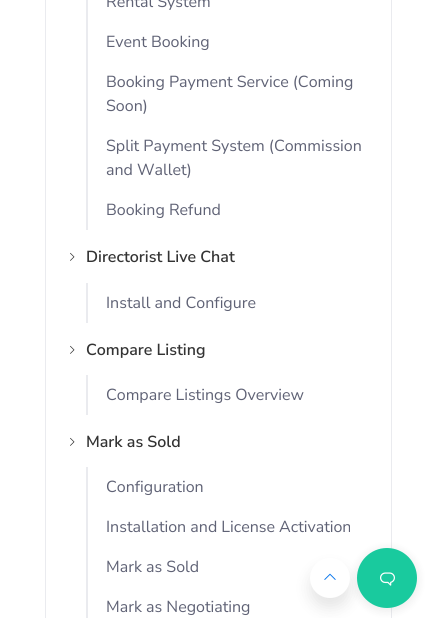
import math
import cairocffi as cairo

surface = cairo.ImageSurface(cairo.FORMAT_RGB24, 437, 618)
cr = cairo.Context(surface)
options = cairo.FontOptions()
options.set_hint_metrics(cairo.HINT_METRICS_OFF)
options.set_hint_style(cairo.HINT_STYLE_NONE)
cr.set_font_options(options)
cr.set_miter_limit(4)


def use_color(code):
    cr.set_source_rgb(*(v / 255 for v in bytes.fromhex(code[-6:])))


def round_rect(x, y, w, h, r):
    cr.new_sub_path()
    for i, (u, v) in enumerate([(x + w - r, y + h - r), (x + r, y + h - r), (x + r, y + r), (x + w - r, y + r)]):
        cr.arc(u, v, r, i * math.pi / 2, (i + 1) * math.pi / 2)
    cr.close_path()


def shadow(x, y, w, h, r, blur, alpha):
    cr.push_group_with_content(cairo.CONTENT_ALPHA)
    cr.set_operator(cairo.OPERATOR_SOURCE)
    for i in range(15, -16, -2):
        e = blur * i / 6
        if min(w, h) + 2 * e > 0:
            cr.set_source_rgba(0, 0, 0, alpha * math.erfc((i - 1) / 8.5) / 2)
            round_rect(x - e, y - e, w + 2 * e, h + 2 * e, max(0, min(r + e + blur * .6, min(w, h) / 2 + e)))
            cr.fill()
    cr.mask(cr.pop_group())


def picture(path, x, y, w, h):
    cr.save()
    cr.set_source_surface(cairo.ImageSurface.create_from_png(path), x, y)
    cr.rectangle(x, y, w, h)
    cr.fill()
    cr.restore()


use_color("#ffffff")
cr.paint()
cr.rectangle(45.5, -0.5, 346, 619)
use_color("#eaebef")
cr.set_line_width(1)
cr.stroke()
cr.rectangle(86, 0, 2, 230)
cr.fill()
cr.select_font_face("Nunito Sans")
cr.set_font_size(16)
use_color("#5f6275")
cr.move_to(106, 7)
cr.show_text("Rental System")
cr.move_to(106, 47)
cr.show_text("Event Booking")
cr.move_to(106, 87)
cr.show_text("Booking Payment Service (Coming")
cr.move_to(106, 111)
cr.show_text("Soon)")
cr.move_to(106, 151)
cr.show_text("Split Payment System (Commission")
cr.move_to(106, 175)
cr.show_text("and Wallet)")
cr.move_to(106, 215)
cr.show_text("Booking Refund")
picture("img1.png", 70, 252, 5, 9)
cr.select_font_face("Nunito Sans SemiBold")
use_color("#333333")
cr.move_to(86, 262)
cr.show_text("Directorist Live Chat")
use_color("#eaebef")
cr.rectangle(86, 283, 2, 40)
cr.fill()
cr.select_font_face("Nunito Sans")
use_color("#5f6275")
cr.move_to(106, 308)
cr.show_text("Install and Configure")
picture("img1.png", 70, 345, 5, 9)
cr.select_font_face("Nunito Sans SemiBold")
use_color("#333333")
cr.move_to(86, 355)
cr.show_text("Compare Listing")
use_color("#eaebef")
cr.rectangle(86, 375, 2, 40)
cr.fill()
cr.select_font_face("Nunito Sans")
use_color("#5f6275")
cr.move_to(106, 400)
cr.show_text("Compare Listings Overview")
picture("img1.png", 70, 437, 5, 9)
cr.select_font_face("Nunito Sans SemiBold")
use_color("#333333")
cr.move_to(86, 447)
cr.show_text("Mark as Sold")
use_color("#eaebef")
cr.rectangle(86, 467, 2, 151)
cr.fill()
cr.select_font_face("Nunito Sans")
use_color("#5f6275")
cr.move_to(106, 492)
cr.show_text("Configuration")
cr.move_to(106, 532)
cr.show_text("Installation and License Activation")
cr.move_to(106, 572)
cr.show_text("Mark as Sold")
cr.move_to(106, 612)
cr.show_text("Mark as Negotiating")
use_color("#000000")
shadow(310, 568, 40, 40, 20, 7.5, 0.1)
use_color("#ffffff")
cr.arc(330, 578, 20, 0, 2 * math.pi)
cr.fill()
use_color("#000000")
shadow(356, 549, 62, 62, 31, 5, 0.08)
use_color("#19ca9e")
cr.arc(387, 578, 30, 0, 2 * math.pi)
cr.fill()
picture("img2.png", 380, 572, 15, 14)
picture("img3.png", 324, 573, 12, 7)
surface.write_to_png("result.png")
